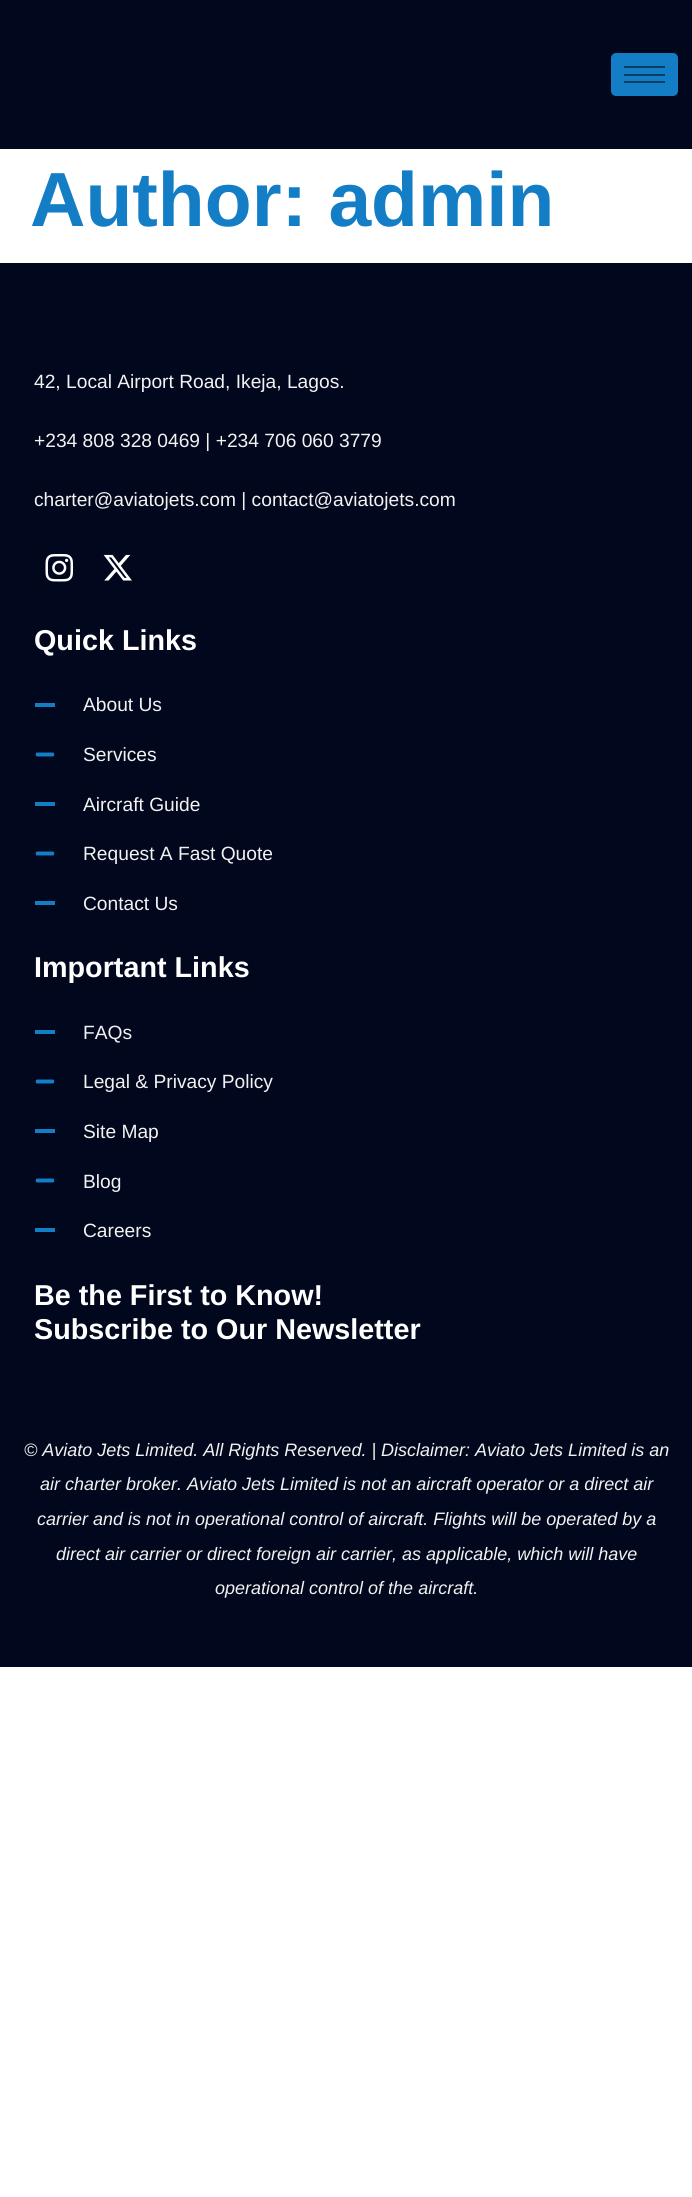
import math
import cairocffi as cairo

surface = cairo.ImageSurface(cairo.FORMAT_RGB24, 692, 2197)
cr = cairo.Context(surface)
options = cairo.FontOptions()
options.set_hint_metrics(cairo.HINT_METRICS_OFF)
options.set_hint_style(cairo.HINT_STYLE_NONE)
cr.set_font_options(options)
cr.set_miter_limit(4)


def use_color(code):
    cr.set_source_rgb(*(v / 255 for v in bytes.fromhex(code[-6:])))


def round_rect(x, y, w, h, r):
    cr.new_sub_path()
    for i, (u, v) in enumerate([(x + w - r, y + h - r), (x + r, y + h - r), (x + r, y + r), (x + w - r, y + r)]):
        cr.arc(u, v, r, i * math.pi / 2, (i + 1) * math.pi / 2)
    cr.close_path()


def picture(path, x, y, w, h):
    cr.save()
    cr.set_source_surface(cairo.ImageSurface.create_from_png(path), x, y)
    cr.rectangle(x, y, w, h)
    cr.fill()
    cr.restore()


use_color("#ffffff")
cr.paint()
use_color("#01081d")
cr.rectangle(0, 0, 692, 149)
cr.fill()
use_color("#137dc5")
round_rect(612, 54, 65, 41, 4)
cr.fill_preserve()
cr.stroke()
use_color("#0a3f63")
cr.rectangle(624, 66, 41, 2)
cr.fill()
cr.rectangle(624, 74, 41, 2)
cr.fill()
cr.rectangle(624, 81, 41, 2)
cr.fill()
cr.select_font_face("Liberation Sans", cairo.FONT_SLANT_NORMAL, cairo.FONT_WEIGHT_BOLD)
cr.set_font_size(76.75)
use_color("#137dc5")
cr.move_to(30, 226)
cr.show_text("Author: admin")
use_color("#01081d")
cr.rectangle(0, 263, 692, 1404)
cr.fill()
cr.select_font_face("Liberation Sans")
cr.set_font_size(19.2)
use_color("#f2f2f2")
cr.move_to(34, 388)
cr.show_text("42, Local Airport Road, Ikeja, Lagos.")
cr.move_to(34, 447)
cr.show_text("+234 808 328 0469 | +234 706 060 3779")
cr.move_to(34, 506)
cr.show_text("charter@aviatojets.com | contact@aviatojets.com")
picture("img1.png", 45, 553, 29, 29)
picture("img2.png", 103, 554, 29, 27)
cr.select_font_face("Liberation Sans", cairo.FONT_SLANT_NORMAL, cairo.FONT_WEIGHT_BOLD)
cr.set_font_size(28.75)
use_color("#ffffff")
cr.move_to(34, 650)
cr.show_text("Quick Links")
use_color("#137dc5")
cr.rectangle(35, 703, 20, 4)
cr.fill()
cr.select_font_face("Liberation Sans")
cr.set_font_size(19.2)
use_color("#f2f2f2")
cr.move_to(83, 711)
cr.show_text("About Us")
picture("img3.png", 35, 752, 20, 5)
cr.move_to(83, 761)
cr.show_text("Services")
use_color("#137dc5")
cr.rectangle(35, 802, 20, 4)
cr.fill()
use_color("#f2f2f2")
cr.move_to(83, 811)
cr.show_text("Aircraft Guide")
picture("img3.png", 35, 851, 20, 5)
cr.move_to(83, 860)
cr.show_text("Request A Fast Quote")
use_color("#137dc5")
cr.rectangle(35, 901, 20, 4)
cr.fill()
use_color("#f2f2f2")
cr.move_to(83, 910)
cr.show_text("Contact Us")
cr.select_font_face("Liberation Sans", cairo.FONT_SLANT_NORMAL, cairo.FONT_WEIGHT_BOLD)
cr.set_font_size(28.75)
use_color("#ffffff")
cr.move_to(34, 977)
cr.show_text("Important Links")
use_color("#137dc5")
cr.rectangle(35, 1030, 20, 4)
cr.fill()
cr.select_font_face("Liberation Sans")
cr.set_font_size(19.2)
use_color("#f2f2f2")
cr.move_to(83, 1039)
cr.show_text("FAQs")
picture("img3.png", 35, 1079, 20, 5)
cr.move_to(83, 1088)
cr.show_text("Legal & Privacy Policy")
use_color("#137dc5")
cr.rectangle(35, 1129, 20, 4)
cr.fill()
use_color("#f2f2f2")
cr.move_to(83, 1138)
cr.show_text("Site Map")
picture("img3.png", 35, 1178, 20, 5)
cr.move_to(83, 1188)
cr.show_text("Blog")
use_color("#137dc5")
cr.rectangle(35, 1228, 20, 4)
cr.fill()
use_color("#f2f2f2")
cr.move_to(83, 1237)
cr.show_text("Careers")
cr.select_font_face("Liberation Sans", cairo.FONT_SLANT_NORMAL, cairo.FONT_WEIGHT_BOLD)
cr.set_font_size(28.75)
use_color("#ffffff")
cr.move_to(34, 1305)
cr.show_text("Be the First to Know!")
cr.move_to(34, 1339)
cr.show_text("Subscribe to Our Newsletter")
cr.select_font_face("Liberation Sans", cairo.FONT_SLANT_ITALIC)
cr.set_font_size(18)
use_color("#f2f2f2")
cr.move_to(24, 1456)
cr.show_text("© Aviato Jets Limited. All Rights Reserved. | Disclaimer: Aviato Jets Limited is an")
cr.move_to(40, 1490)
cr.show_text("air charter broker. Aviato Jets Limited is not an aircraft operator or a direct air")
cr.move_to(37, 1525)
cr.show_text("carrier and is not in operational control of aircraft. Flights will be operated by a")
cr.move_to(56, 1560)
cr.show_text("direct air carrier or direct foreign air carrier, as applicable, which will have")
cr.move_to(215, 1594)
cr.show_text("operational control of the aircraft.")
surface.write_to_png("result.png")
